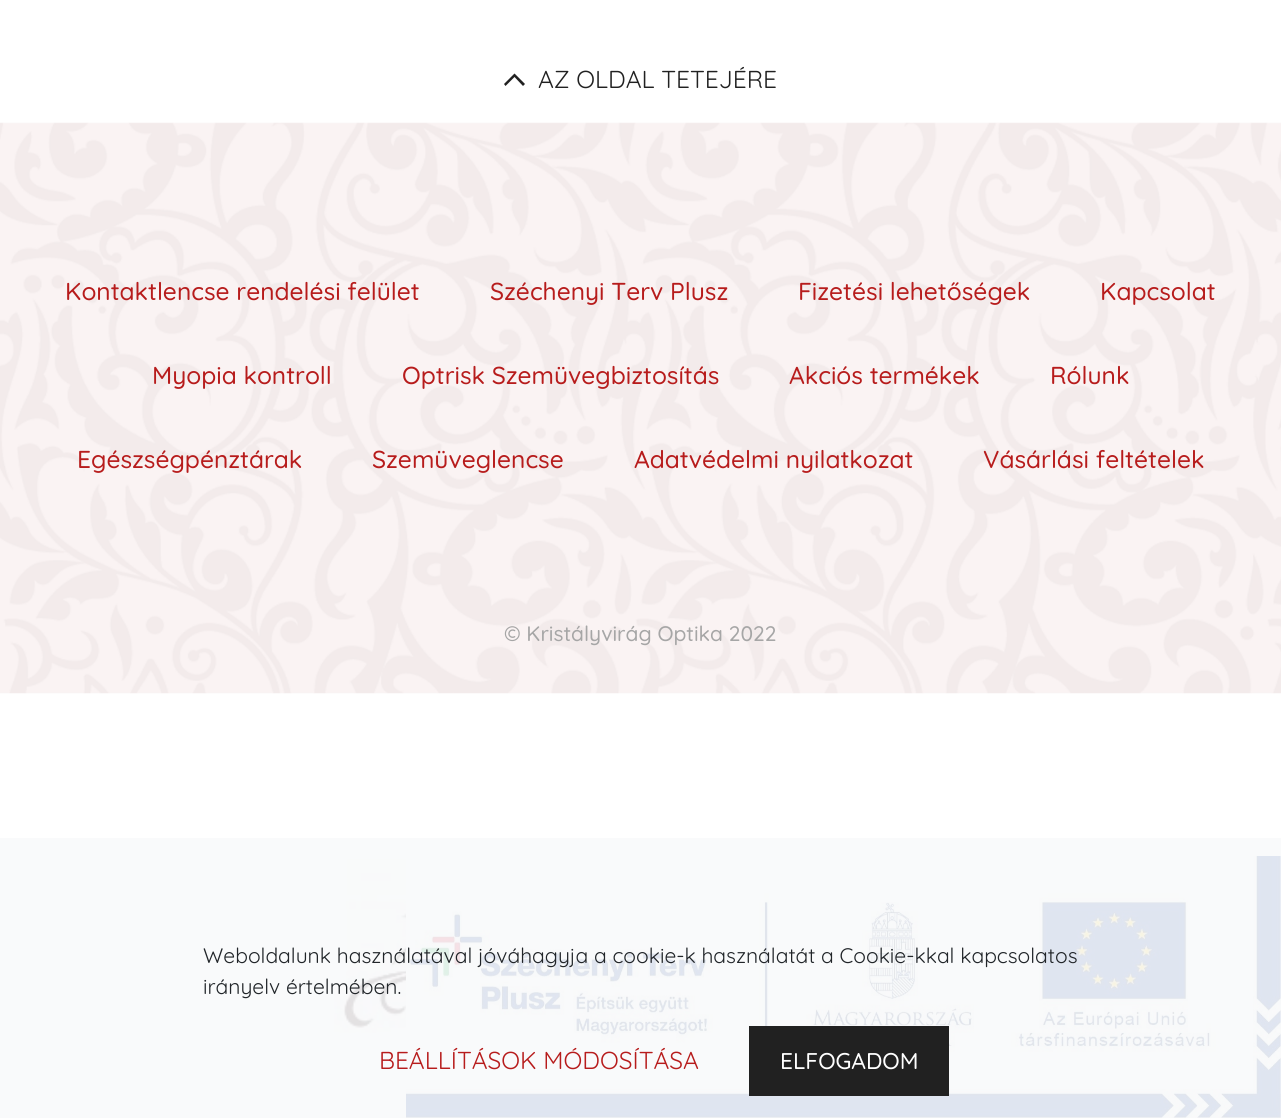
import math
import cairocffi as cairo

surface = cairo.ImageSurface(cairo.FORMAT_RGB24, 1281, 1118)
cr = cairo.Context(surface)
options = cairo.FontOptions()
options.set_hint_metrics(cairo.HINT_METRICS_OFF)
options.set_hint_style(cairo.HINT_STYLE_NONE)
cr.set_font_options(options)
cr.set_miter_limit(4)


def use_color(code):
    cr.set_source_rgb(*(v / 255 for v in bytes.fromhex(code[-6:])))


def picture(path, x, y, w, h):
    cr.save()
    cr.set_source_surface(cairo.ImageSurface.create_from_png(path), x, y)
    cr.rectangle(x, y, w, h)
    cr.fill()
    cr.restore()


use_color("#ffffff")
cr.paint()
use_color("#f9fafb")
cr.rectangle(0, 838, 1281, 280)
cr.fill()
use_color("#212121")
cr.new_path()
cr.move_to(504, 84)
cr.line_to(505.5, 86)
cr.line_to(514.5, 77)
cr.line_to(523, 86)
cr.line_to(525, 84)
cr.line_to(514.5, 73.5)
cr.close_path()
cr.fill()
cr.select_font_face("Quicksand")
cr.set_font_size(24.5)
cr.move_to(538, 88)
cr.show_text("AZ OLDAL TETEJÉRE")
picture("img1.png", 0, 122, 1281, 572)
cr.select_font_face("Quicksand Medium")
use_color("#b71c1c")
cr.move_to(65, 300)
cr.show_text("Kontaktlencse rendelési felület")
cr.move_to(490, 300)
cr.show_text("Széchenyi Terv Plusz")
cr.move_to(798, 300)
cr.show_text("Fizetési lehetőségek")
cr.move_to(1100, 300)
cr.show_text("Kapcsolat")
cr.move_to(152, 384)
cr.show_text("Myopia kontroll")
cr.move_to(402, 384)
cr.show_text("Optrisk Szemüvegbiztosítás")
cr.move_to(789, 384)
cr.show_text("Akciós termékek")
cr.move_to(1050, 384)
cr.show_text("Rólunk")
cr.move_to(77, 468)
cr.show_text("Egészségpénztárak")
cr.move_to(372, 468)
cr.show_text("Szemüveglencse")
cr.move_to(634, 468)
cr.show_text("Adatvédelmi nyilatkozat")
cr.move_to(983, 468)
cr.show_text("Vásárlási feltételek")
cr.set_font_size(21)
use_color("#a6a6a6")
cr.move_to(504, 641)
cr.show_text("© Kristályvirág Optika 2022")
picture("img2.png", 406, 856, 875, 262)
picture("img3.png", 334, 859, 72, 174)
cr.select_font_face("Quicksand")
use_color("#212529")
cr.move_to(203, 963)
cr.show_text("Weboldalunk használatával jóváhagyja a cookie-k használatát a Cookie-kkal kapcsolatos")
cr.move_to(203, 994)
cr.show_text("irányelv értelmében.")
cr.set_font_size(24.5)
use_color("#b71c1c")
cr.move_to(379, 1069)
cr.show_text("BEÁLLÍTÁSOK MÓDOSÍTÁSA")
use_color("#212121")
cr.rectangle(749, 1026, 200, 70)
cr.fill()
cr.select_font_face("Quicksand Medium")
cr.set_font_size(22.75)
use_color("#ffffff")
cr.move_to(780, 1069)
cr.show_text("ELFOGADOM")
surface.write_to_png("result.png")
